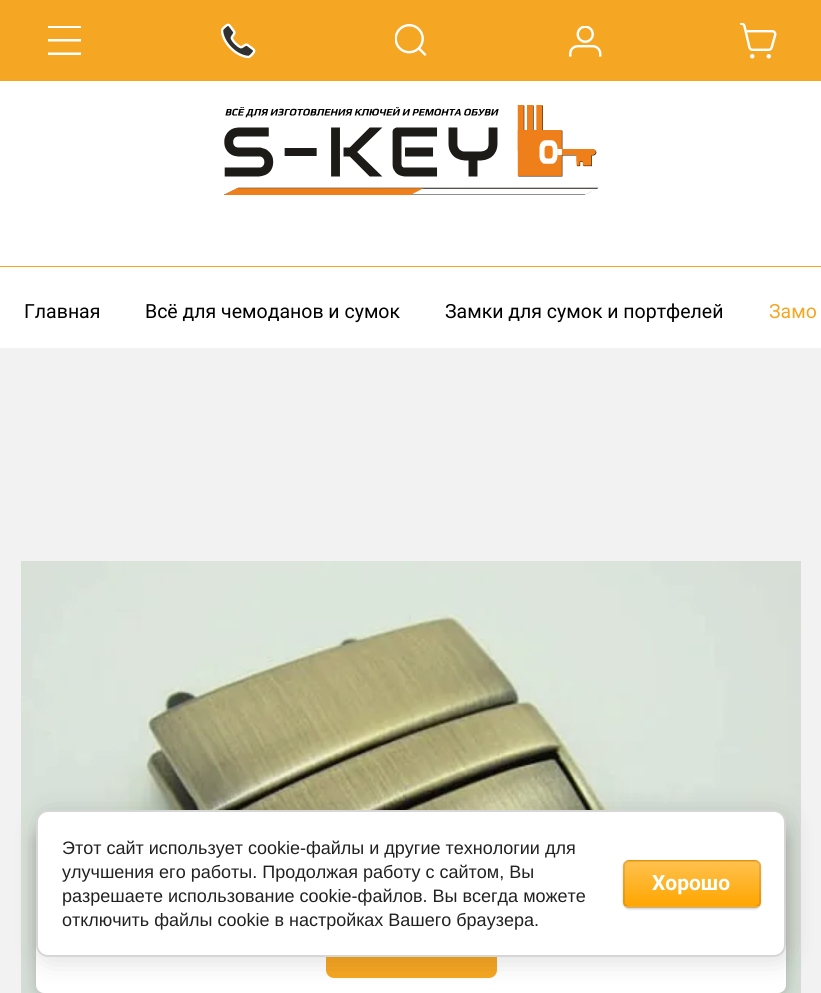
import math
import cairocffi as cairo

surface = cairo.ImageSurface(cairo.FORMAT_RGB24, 821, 993)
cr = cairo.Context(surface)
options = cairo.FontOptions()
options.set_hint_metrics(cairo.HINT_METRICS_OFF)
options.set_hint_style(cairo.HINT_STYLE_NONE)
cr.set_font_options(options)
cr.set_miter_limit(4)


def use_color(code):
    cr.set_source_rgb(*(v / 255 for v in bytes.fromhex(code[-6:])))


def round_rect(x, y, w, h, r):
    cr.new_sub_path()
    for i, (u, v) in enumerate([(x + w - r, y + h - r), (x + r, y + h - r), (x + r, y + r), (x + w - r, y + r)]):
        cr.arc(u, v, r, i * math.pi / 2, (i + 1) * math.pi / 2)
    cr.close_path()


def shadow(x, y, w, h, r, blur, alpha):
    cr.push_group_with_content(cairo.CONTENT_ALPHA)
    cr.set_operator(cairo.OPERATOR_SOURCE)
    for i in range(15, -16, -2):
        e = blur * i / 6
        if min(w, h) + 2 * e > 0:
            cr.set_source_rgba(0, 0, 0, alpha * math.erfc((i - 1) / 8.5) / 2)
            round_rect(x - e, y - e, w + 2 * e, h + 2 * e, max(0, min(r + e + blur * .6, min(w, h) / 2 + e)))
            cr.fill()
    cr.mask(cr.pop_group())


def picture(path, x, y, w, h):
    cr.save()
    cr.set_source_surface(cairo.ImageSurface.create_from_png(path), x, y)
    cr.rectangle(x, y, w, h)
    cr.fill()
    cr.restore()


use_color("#ffffff")
cr.paint()
use_color("#f5a623")
cr.rectangle(0, 0, 821, 81)
cr.fill()
cr.save()
cr.rectangle(48, 26, 33, 30)
cr.clip()
use_color("#ffffff")
cr.set_fill_rule(cairo.FILL_RULE_EVEN_ODD)
cr.new_path()
cr.move_to(81, 28)
cr.line_to(48, 28)
cr.line_to(48, 25.5)
cr.line_to(81, 25.5)
cr.close_path()
cr.move_to(81, 41.5)
cr.line_to(48, 41.5)
cr.line_to(48, 39)
cr.line_to(81, 39)
cr.close_path()
cr.move_to(48, 55)
cr.line_to(81, 55)
cr.line_to(81, 52.5)
cr.line_to(48, 52.5)
cr.close_path()
cr.fill()
cr.restore()
picture("img1.png", 221, 23, 35, 36)
picture("img2.png", 395, 24, 32, 32)
picture("img3.png", 569, 26, 33, 31)
picture("img4.png", 740, 23, 37, 36)
cr.rectangle(0, 266, 821, 1)
cr.fill()
picture("img5.png", 224, 105, 375, 90)
cr.select_font_face("Roboto")
cr.set_font_size(19.5)
use_color("#000000")
cr.move_to(24, 318)
cr.show_text("Главная")
cr.move_to(145, 318)
cr.show_text("Всё для чемоданов и сумок")
cr.move_to(445, 318)
cr.show_text("Замки для сумок и портфелей")
use_color("#f5a623")
cr.move_to(769, 318)
cr.show_text("Замо")
use_color("#f2f2f2")
cr.rectangle(0, 348, 821, 645)
cr.fill()
picture("img6.png", 21, 561, 780, 432)
use_color("#000000")
shadow(36, 833, 750, 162, 8, 7.5, 0.2)
use_color("#ffffff")
round_rect(36, 831, 750, 162, 8)
cr.fill()
use_color("#f5a623")
round_rect(326, 924, 171, 54, 8)
cr.fill()
use_color("#000000")
shadow(39, 813, 750, 147, 12, 13.5, 0.14)
use_color("#ffffff")
round_rect(37, 811, 748, 145, 11)
cr.fill_preserve()
use_color("#d6d6d6")
cr.stroke()
cr.select_font_face("Liberation Sans")
cr.set_font_size(18)
use_color("#212121")
cr.move_to(62, 854)
cr.show_text("Этот сайт использует cookie-файлы и другие технологии для")
cr.move_to(62, 878)
cr.show_text("улучшения его работы. Продолжая работу с сайтом, Вы")
cr.move_to(62, 902)
cr.show_text("разрешаете использование cookie-файлов. Вы всегда можете")
cr.move_to(62, 926)
cr.show_text("отключить файлы cookie в настройках Вашего браузера.")
use_color("#000000")
shadow(623, 861, 138, 48, 6, 1, 0.2)
cr.save()
round_rect(623, 860, 138, 48, 6)
cr.clip()
gradient = cairo.LinearGradient(692, 816, 692, 861)
gradient.add_color_stop_rgba(0, 1, 0.757, 0.306, 1)
gradient.add_color_stop_rgba(1, 1, 0.651, 0.004, 1)
cr.set_source(gradient)
cr.rectangle(623, 860, 138, 1)
cr.fill()
gradient = cairo.LinearGradient(692, 861, 692, 906)
gradient.add_color_stop_rgba(0, 1, 0.757, 0.306, 1)
gradient.add_color_stop_rgba(1, 1, 0.651, 0.004, 1)
cr.set_source(gradient)
cr.rectangle(623, 861, 138, 45)
cr.fill()
gradient = cairo.LinearGradient(692, 906, 692, 951)
gradient.add_color_stop_rgba(0, 1, 0.757, 0.306, 1)
gradient.add_color_stop_rgba(1, 1, 0.651, 0.004, 1)
cr.set_source(gradient)
cr.rectangle(623, 906, 138, 2)
cr.fill()
cr.restore()
round_rect(624, 861, 136, 46, 5)
cr.set_source_rgba(0, 0, 0, 0.1)
cr.stroke()
cr.select_font_face("Roboto", cairo.FONT_SLANT_NORMAL, cairo.FONT_WEIGHT_BOLD)
cr.set_font_size(21)
use_color("#ffffff")
cr.move_to(652, 890)
cr.show_text("Хорошо")
surface.write_to_png("result.png")
